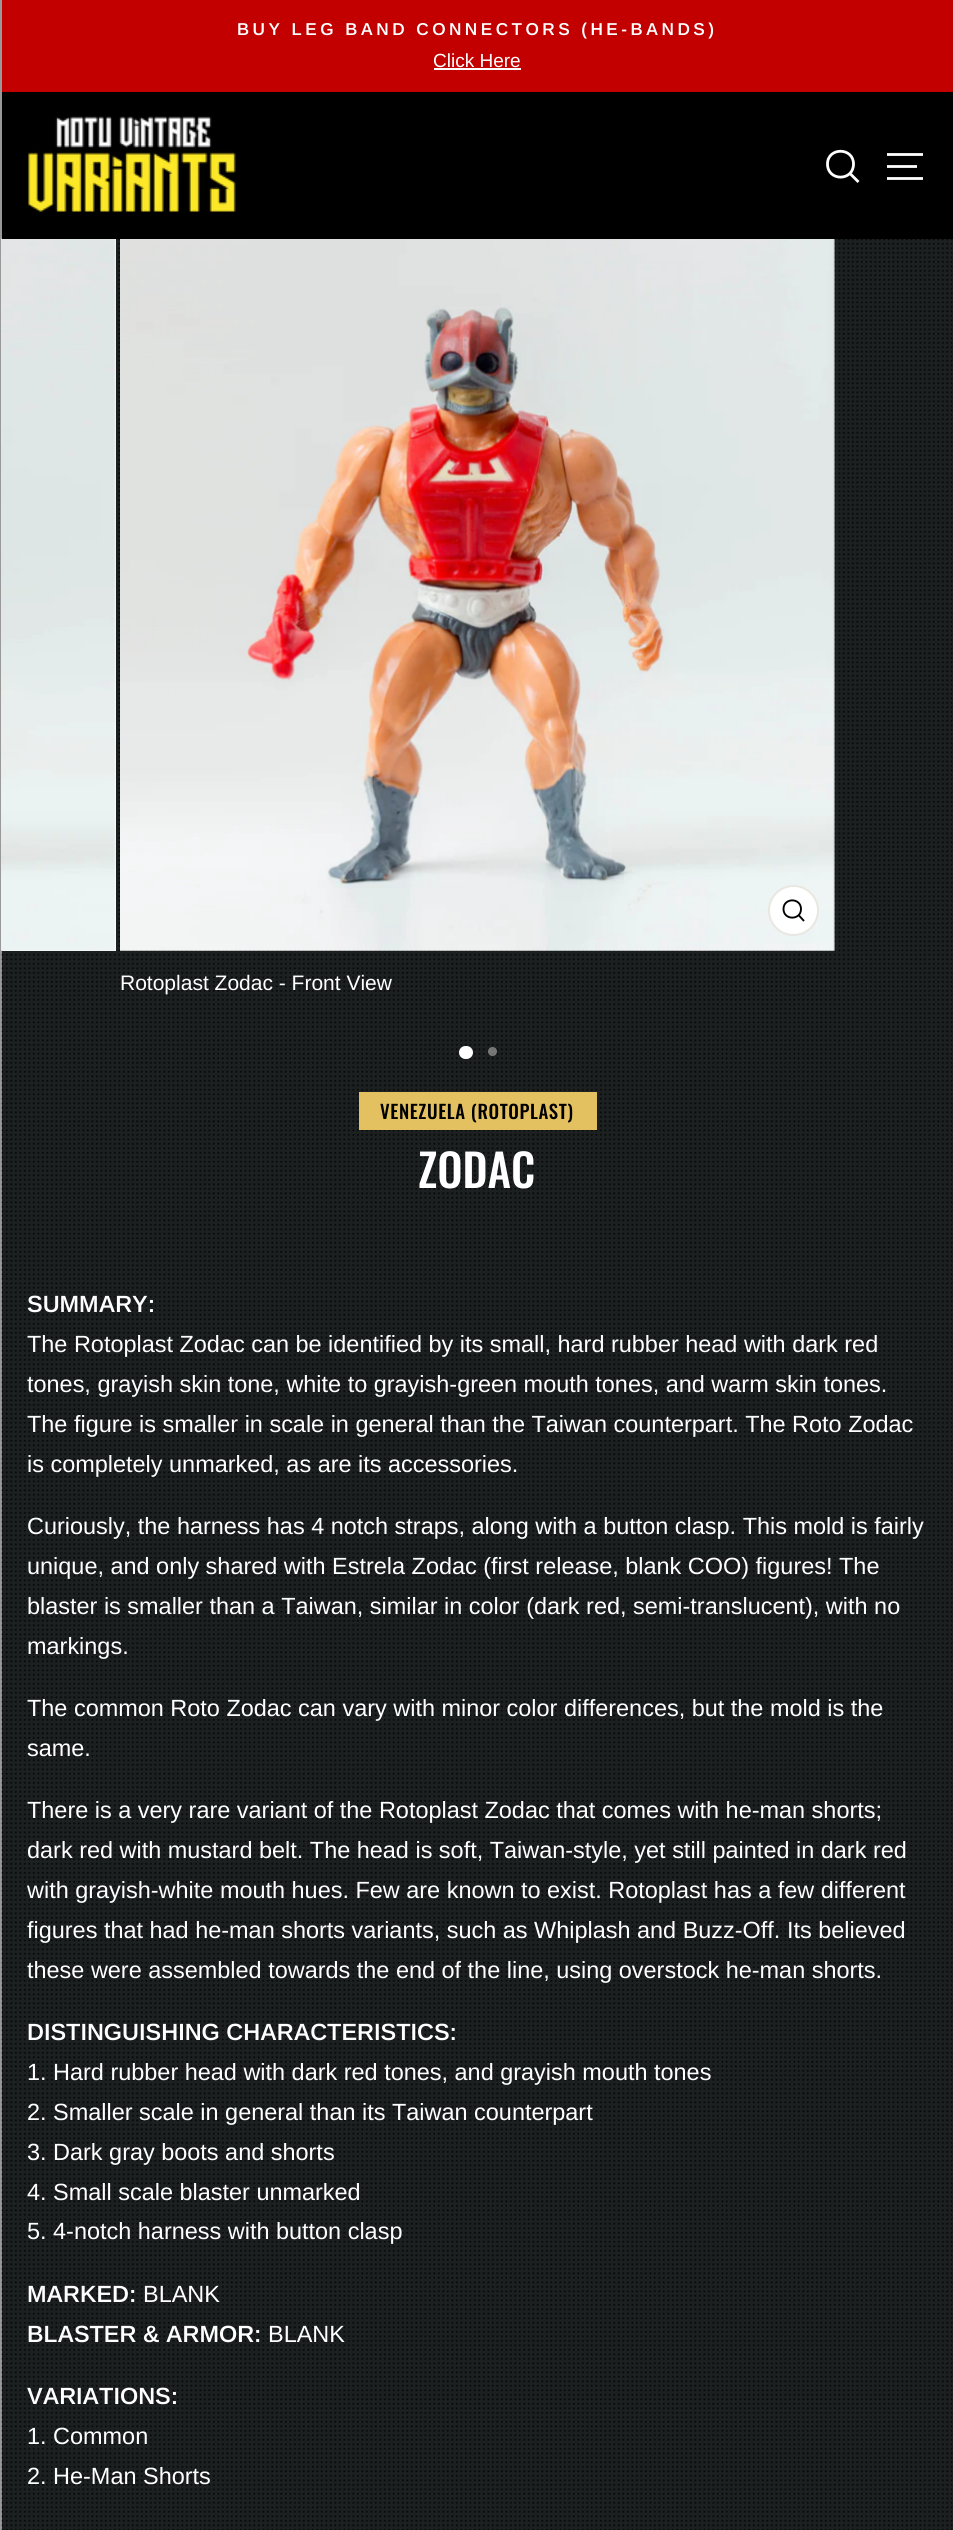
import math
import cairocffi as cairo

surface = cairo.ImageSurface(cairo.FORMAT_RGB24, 953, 2530)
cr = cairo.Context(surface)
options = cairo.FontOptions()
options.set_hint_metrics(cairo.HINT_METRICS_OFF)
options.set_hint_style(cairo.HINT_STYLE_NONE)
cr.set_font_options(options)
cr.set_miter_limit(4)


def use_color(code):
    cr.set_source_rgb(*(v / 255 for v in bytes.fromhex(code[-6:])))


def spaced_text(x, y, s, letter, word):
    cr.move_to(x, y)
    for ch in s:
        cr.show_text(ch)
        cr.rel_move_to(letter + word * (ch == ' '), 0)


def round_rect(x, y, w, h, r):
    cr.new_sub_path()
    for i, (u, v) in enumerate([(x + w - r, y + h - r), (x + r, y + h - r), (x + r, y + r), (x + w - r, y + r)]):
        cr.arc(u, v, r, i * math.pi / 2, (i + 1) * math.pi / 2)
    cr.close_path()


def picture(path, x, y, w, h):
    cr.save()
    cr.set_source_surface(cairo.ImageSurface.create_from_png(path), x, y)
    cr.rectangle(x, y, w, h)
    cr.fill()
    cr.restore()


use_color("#999999")
cr.paint()
use_color("#c20000")
cr.rectangle(2, 0, 951, 92)
cr.fill()
cr.select_font_face("Arimo SemiBold")
cr.set_font_size(17.2)
use_color("#ffffff")
spaced_text(237, 35, "BUY LEG BAND CONNECTORS (HE-BANDS)", 3.45, 0)
cr.select_font_face("Arimo")
cr.set_font_size(19)
cr.move_to(433, 67)
cr.show_text("Click Here")
cr.rectangle(434, 68, 87, 2)
cr.fill()
use_color("#1c2020")
cr.rectangle(2, 239, 951, 2291)
cr.fill()
picture("img2.png", 1, 238, 952, 2292)
use_color("#ffffff")
cr.rectangle(2, 239, 114, 712)
cr.fill()
picture("img3.png", 1, 238, 115, 713)
use_color("#000000")
cr.rectangle(2, 92, 951, 147)
cr.fill()
picture("img1.png", 28, 116, 208, 96)
cr.new_path()
cr.move_to(853.5, 164)
cr.curve_to(853.5, 181.5, 827.5, 181.5, 827.5, 164)
cr.curve_to(827.5, 147, 853.5, 147, 853.5, 164)
cr.close_path()
cr.move_to(858.5, 182)
cr.line_to(850, 173.5)
use_color("#ffffff")
cr.set_line_width(2.8)
cr.stroke()
cr.new_path()
cr.move_to(887, 154.5)
cr.line_to(923, 154.5)
cr.move_to(887, 166.5)
cr.line_to(917, 166.5)
cr.move_to(887, 178.5)
cr.line_to(923, 178.5)
cr.stroke()
picture("img4.png", 120, 239, 715, 712)
cr.arc(793.5, 910.5, 24.5, 0, 2 * math.pi)
cr.fill_preserve()
use_color("#e8e8e1")
cr.set_line_width(2)
cr.stroke()
cr.new_path()
cr.move_to(801, 909)
cr.curve_to(801, 920.5, 783.5, 920.5, 783.5, 909)
cr.curve_to(783.5, 897.5, 801, 897.5, 801, 909)
cr.close_path()
cr.move_to(804, 921)
cr.line_to(798.5, 915)
use_color("#000000")
cr.set_line_width(1.9)
cr.stroke()
cr.set_font_size(21)
use_color("#ffffff")
cr.move_to(120, 990)
cr.show_text("Rotoplast Zodac - Front View")
round_rect(459, 1046, 14, 13, 6.5)
cr.fill()
cr.set_source_rgba(1, 1, 1, 0.4)
cr.arc(492.5, 1051.5, 4.5, 0, 2 * math.pi)
cr.fill()
use_color("#e4c160")
cr.rectangle(359, 1092, 238, 38)
cr.fill()
cr.select_font_face("oswald Medium")
cr.set_font_size(18.75)
use_color("#000000")
spaced_text(380, 1119, "VENEZUELA (ROTOPLAST)", 0.6, 0)
cr.set_font_size(45)
use_color("#ffffff")
cr.move_to(418, 1188)
cr.show_text("ZODAC")
cr.select_font_face("Arimo SemiBold")
cr.set_font_size(23.45)
cr.move_to(27, 1312)
cr.show_text("SUMMARY:")
cr.select_font_face("Arimo")
cr.move_to(27, 1352)
cr.show_text("The Rotoplast Zodac can be identified by its small, hard rubber head with dark red")
cr.move_to(27, 1392)
cr.show_text("tones, grayish skin tone, white to grayish-green mouth tones, and warm skin tones.")
cr.move_to(27, 1432)
cr.show_text("The figure is smaller in scale in general than the Taiwan counterpart. The Roto Zodac")
cr.move_to(27, 1472)
cr.show_text("is completely unmarked, as are its accessories.")
cr.move_to(27, 1534)
cr.show_text("Curiously, the harness has 4 notch straps, along with a button clasp. This mold is fairly")
cr.move_to(27, 1574)
cr.show_text("unique, and only shared with Estrela Zodac (first release, blank COO) figures! The")
cr.move_to(27, 1614)
cr.show_text("blaster is smaller than a Taiwan, similar in color (dark red, semi-translucent), with no")
cr.move_to(27, 1654)
cr.show_text("markings.")
cr.move_to(27, 1716)
cr.show_text("The common Roto Zodac can vary with minor color differences, but the mold is the")
cr.move_to(27, 1756)
cr.show_text("same.")
cr.move_to(27, 1818)
cr.show_text("There is a very rare variant of the Rotoplast Zodac that comes with he-man shorts;")
cr.move_to(27, 1858)
cr.show_text("dark red with mustard belt. The head is soft, Taiwan-style, yet still painted in dark red")
cr.move_to(27, 1898)
cr.show_text("with grayish-white mouth hues. Few are known to exist. Rotoplast has a few different")
cr.move_to(27, 1938)
cr.show_text("figures that had he-man shorts variants, such as Whiplash and Buzz-Off. Its believed")
cr.move_to(27, 1978)
cr.show_text("these were assembled towards the end of the line, using overstock he-man shorts.")
cr.select_font_face("Arimo SemiBold")
cr.move_to(27, 2040)
cr.show_text("DISTINGUISHING CHARACTERISTICS:")
cr.select_font_face("Arimo")
cr.move_to(27, 2080)
cr.show_text("1. Hard rubber head with dark red tones, and grayish mouth tones")
cr.move_to(27, 2120)
cr.show_text("2. Smaller scale in general than its Taiwan counterpart")
cr.move_to(27, 2160)
cr.show_text("3. Dark gray boots and shorts")
cr.move_to(27, 2200)
cr.show_text("4. Small scale blaster unmarked")
cr.move_to(27, 2239)
cr.show_text("5. 4-notch harness with button clasp")
cr.select_font_face("Arimo SemiBold")
cr.move_to(27, 2302)
cr.show_text("MARKED:")
cr.select_font_face("Arimo")
cr.move_to(143, 2302)
cr.show_text("BLANK")
cr.select_font_face("Arimo SemiBold")
cr.move_to(27, 2342)
cr.show_text("BLASTER & ARMOR:")
cr.select_font_face("Arimo")
cr.move_to(268, 2342)
cr.show_text("BLANK")
cr.select_font_face("Arimo SemiBold")
cr.move_to(27, 2404)
cr.show_text("VARIATIONS:")
cr.select_font_face("Arimo")
cr.move_to(27, 2444)
cr.show_text("1. Common")
cr.move_to(27, 2484)
cr.show_text("2. He-Man Shorts")
surface.write_to_png("result.png")
